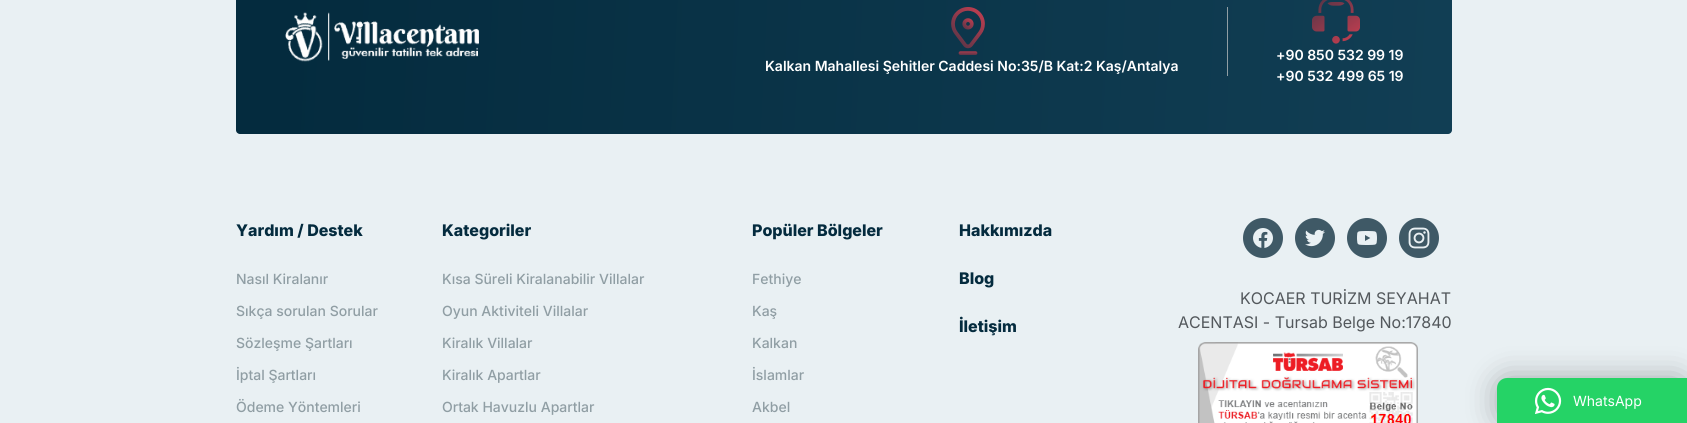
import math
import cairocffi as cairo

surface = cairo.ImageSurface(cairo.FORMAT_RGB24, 1687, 423)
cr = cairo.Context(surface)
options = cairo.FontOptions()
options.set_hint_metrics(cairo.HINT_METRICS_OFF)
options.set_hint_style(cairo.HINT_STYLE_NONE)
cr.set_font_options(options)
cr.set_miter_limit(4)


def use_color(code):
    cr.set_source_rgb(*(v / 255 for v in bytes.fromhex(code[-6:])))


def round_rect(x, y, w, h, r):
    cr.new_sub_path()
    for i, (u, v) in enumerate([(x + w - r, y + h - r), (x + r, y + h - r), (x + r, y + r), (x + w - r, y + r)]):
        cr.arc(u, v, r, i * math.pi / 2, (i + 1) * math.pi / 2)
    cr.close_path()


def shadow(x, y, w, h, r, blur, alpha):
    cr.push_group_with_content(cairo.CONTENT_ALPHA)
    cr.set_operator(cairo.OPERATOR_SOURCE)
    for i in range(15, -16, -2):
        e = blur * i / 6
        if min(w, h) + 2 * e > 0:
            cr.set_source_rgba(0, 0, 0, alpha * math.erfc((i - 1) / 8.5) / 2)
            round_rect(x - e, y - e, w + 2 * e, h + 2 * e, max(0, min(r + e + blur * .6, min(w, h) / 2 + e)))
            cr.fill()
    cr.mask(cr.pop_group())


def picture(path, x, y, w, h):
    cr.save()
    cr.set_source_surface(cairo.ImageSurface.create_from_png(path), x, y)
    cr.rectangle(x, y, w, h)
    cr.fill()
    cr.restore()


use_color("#e9f0f3")
cr.paint()
gradient = cairo.LinearGradient(233, 10, 1455, 72)
gradient.add_color_stop_rgba(0.04, 0.016, 0.169, 0.243, 1)
gradient.add_color_stop_rgba(0.99, 0.067, 0.243, 0.329, 1)
cr.set_source(gradient)
round_rect(236, -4, 1216, 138, 4)
cr.fill()
picture("img1.png", 285, 12, 194, 50)
use_color("#909ea4")
cr.rectangle(1227, 7, 1, 69)
cr.fill()
picture("img2.png", 951, 7, 34, 48)
cr.select_font_face("Inter SemiBold")
cr.set_font_size(14)
use_color("#ffffff")
cr.move_to(765, 71)
cr.show_text("Kalkan Mahallesi Şehitler Caddesi No:35/B Kat:2 Kaş/Antalya")
picture("img3.png", 1312, 0, 48, 44)
cr.move_to(1276, 60)
cr.show_text("+90 850 532 99 19")
cr.move_to(1276, 81)
cr.show_text("+90 532 499 65 19")
cr.select_font_face("Inter ExtraBold")
cr.set_font_size(16)
use_color("#042b3e")
cr.move_to(236, 236)
cr.show_text("Yardım / Destek")
cr.select_font_face("Inter Medium")
cr.set_font_size(14)
use_color("#909ea4")
cr.move_to(236, 284)
cr.show_text("Nasıl Kiralanır")
cr.move_to(236, 316)
cr.show_text("Sıkça sorulan Sorular")
cr.move_to(236, 348)
cr.show_text("Sözleşme Şartları")
cr.move_to(236, 380)
cr.show_text("İptal Şartları")
cr.move_to(236, 412)
cr.show_text("Ödeme Yöntemleri")
cr.select_font_face("Inter ExtraBold")
cr.set_font_size(16)
use_color("#042b3e")
cr.move_to(442, 236)
cr.show_text("Kategoriler")
cr.select_font_face("Inter Medium")
cr.set_font_size(14)
use_color("#909ea4")
cr.move_to(442, 284)
cr.show_text("Kısa Süreli Kiralanabilir Villalar")
cr.move_to(442, 316)
cr.show_text("Oyun Aktiviteli Villalar")
cr.move_to(442, 348)
cr.show_text("Kiralık Villalar")
cr.move_to(442, 380)
cr.show_text("Kiralık Apartlar")
cr.move_to(442, 412)
cr.show_text("Ortak Havuzlu Apartlar")
cr.select_font_face("Inter ExtraBold")
cr.set_font_size(16)
use_color("#042b3e")
cr.move_to(752, 236)
cr.show_text("Popüler Bölgeler")
cr.select_font_face("Inter Medium")
cr.set_font_size(14)
use_color("#909ea4")
cr.move_to(752, 284)
cr.show_text("Fethiye")
cr.move_to(752, 316)
cr.show_text("Kaş")
cr.move_to(752, 348)
cr.show_text("Kalkan")
cr.move_to(752, 380)
cr.show_text("İslamlar")
cr.move_to(752, 412)
cr.show_text("Akbel")
cr.select_font_face("Inter ExtraBold")
cr.set_font_size(16)
use_color("#042b3e")
cr.move_to(959, 236)
cr.show_text("Hakkımızda")
cr.move_to(959, 284)
cr.show_text("Blog")
cr.move_to(959, 332)
cr.show_text("İletişim")
picture("img4.png", 1243, 218, 40, 40)
picture("img5.png", 1295, 218, 40, 40)
picture("img6.png", 1347, 218, 40, 40)
picture("img7.png", 1399, 218, 40, 40)
cr.select_font_face("Inter")
use_color("#53585c")
cr.move_to(1240, 304)
cr.show_text("KOCAER TURİZM SEYAHAT")
cr.move_to(1178, 328)
cr.show_text("ACENTASI - Tursab Belge No:17840")
picture("img8.png", 1198, 342, 220, 81)
use_color("#000000")
shadow(1497, 378, 190, 45, 10, 15, 0.3)
use_color("#25d366")
cr.new_path()
cr.move_to(1507, 378)
cr.line_to(1687, 378)
cr.line_to(1687, 423)
cr.line_to(1497, 423)
cr.line_to(1497, 388)
cr.curve_to(1497, 382.5, 1501.5, 378, 1507, 378)
cr.close_path()
cr.fill()
picture("img9.png", 1535, 387, 27, 27)
cr.set_font_size(14)
use_color("#ffffff")
cr.move_to(1573, 406)
cr.show_text("WhatsApp")
surface.write_to_png("result.png")
